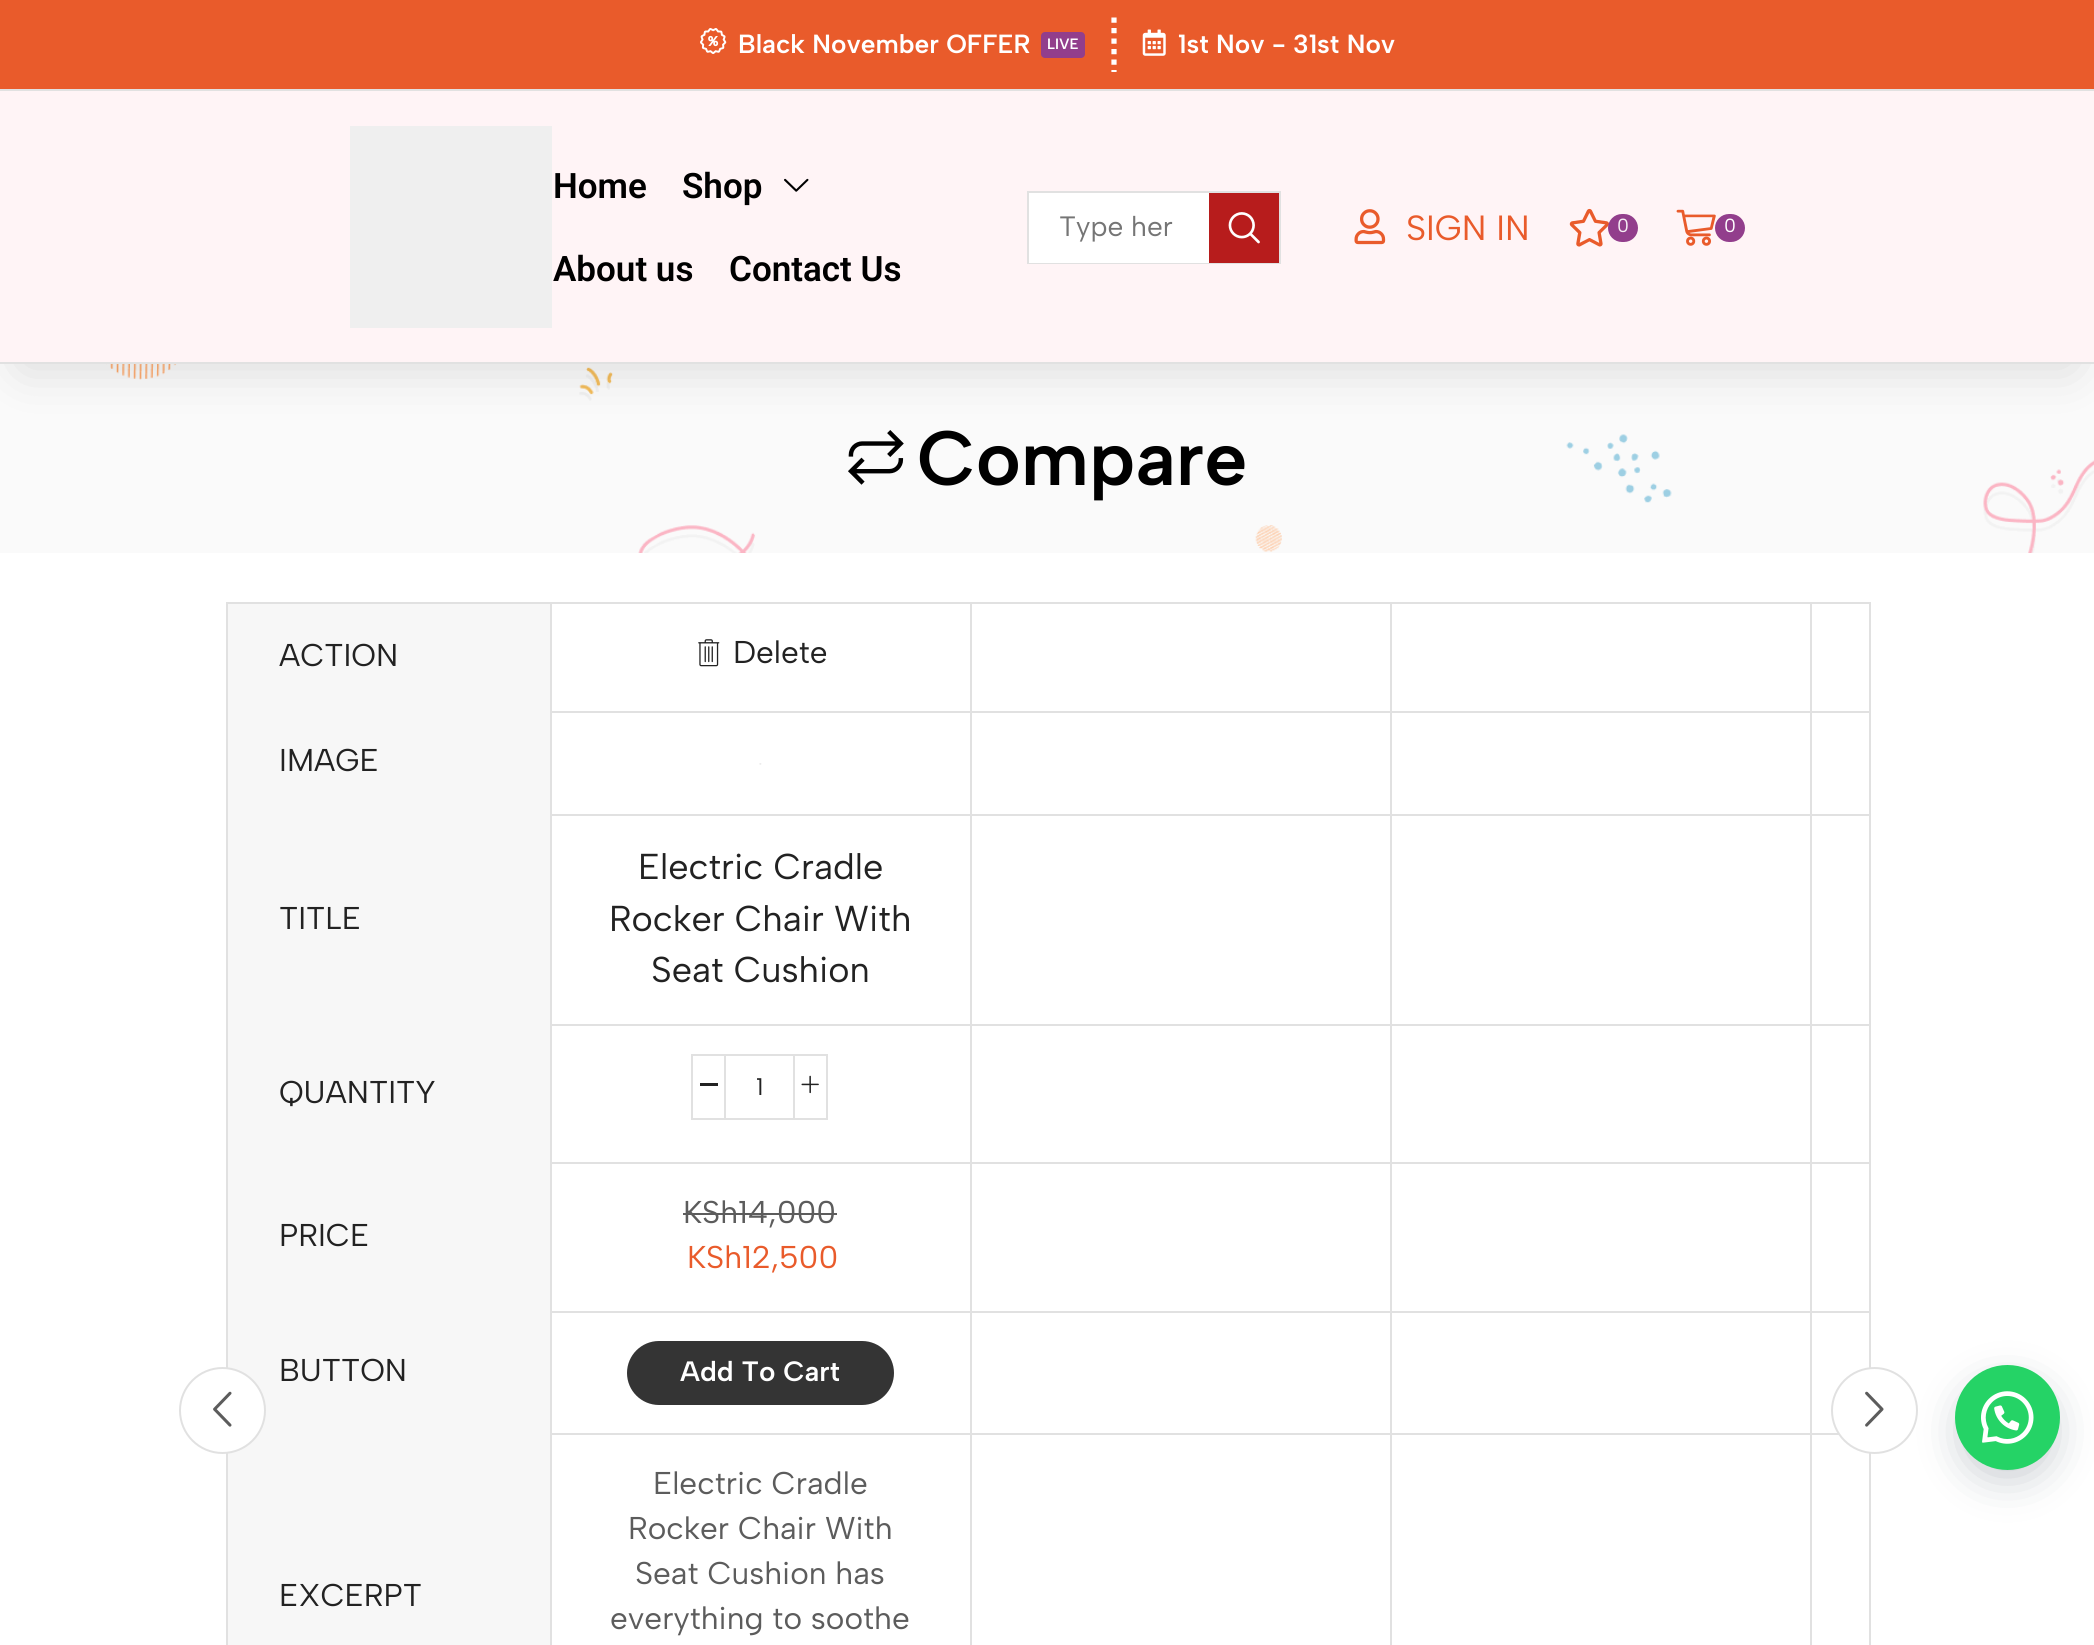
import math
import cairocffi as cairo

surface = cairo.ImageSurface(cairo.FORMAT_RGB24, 2094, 1645)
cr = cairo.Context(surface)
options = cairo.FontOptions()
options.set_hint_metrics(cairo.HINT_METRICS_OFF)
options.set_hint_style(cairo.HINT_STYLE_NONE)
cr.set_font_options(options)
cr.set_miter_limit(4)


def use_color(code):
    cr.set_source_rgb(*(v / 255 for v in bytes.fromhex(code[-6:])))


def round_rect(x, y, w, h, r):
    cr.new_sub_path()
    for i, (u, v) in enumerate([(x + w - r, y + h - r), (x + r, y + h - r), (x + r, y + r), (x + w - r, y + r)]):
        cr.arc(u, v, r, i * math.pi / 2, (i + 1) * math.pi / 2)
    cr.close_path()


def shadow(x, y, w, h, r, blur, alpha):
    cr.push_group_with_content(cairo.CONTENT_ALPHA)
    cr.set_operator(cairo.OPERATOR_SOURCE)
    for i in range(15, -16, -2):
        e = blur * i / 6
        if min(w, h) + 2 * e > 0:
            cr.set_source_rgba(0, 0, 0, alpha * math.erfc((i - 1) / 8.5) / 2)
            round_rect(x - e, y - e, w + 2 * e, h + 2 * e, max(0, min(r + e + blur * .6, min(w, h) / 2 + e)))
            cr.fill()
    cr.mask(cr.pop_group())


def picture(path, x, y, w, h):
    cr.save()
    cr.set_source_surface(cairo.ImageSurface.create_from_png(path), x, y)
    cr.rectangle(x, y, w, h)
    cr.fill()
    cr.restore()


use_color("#ffffff")
cr.paint()
use_color("#e95b2b")
cr.rectangle(0, 0, 2094, 89)
cr.fill()
cr.new_path()
cr.move_to(1114, 17.5)
cr.line_to(1114, 72)
use_color("#ffffff")
cr.set_line_width(5.2)
cr.set_dash([5.25, 5.25])
cr.stroke()
picture("img1.png", 700, 28, 27, 26)
cr.select_font_face("Albert Sans SemiBold")
cr.set_font_size(26.25)
cr.move_to(738, 53)
cr.show_text("Black November OFFER")
use_color("#923e8c")
round_rect(1041, 32, 44, 26, 4)
cr.fill()
cr.set_font_size(15)
use_color("#ffffff")
cr.move_to(1047, 49)
cr.show_text("LIVE")
picture("img2.png", 1142, 29, 24, 27)
cr.set_font_size(26.25)
cr.move_to(1178, 53)
cr.show_text("1st Nov - 31st Nov")
use_color("#fafafa")
cr.rectangle(0, 364, 2094, 189)
cr.fill()
picture("img8.png", 106, 364, 1988, 189)
use_color("#000000")
shadow(23, 137, 2049, 229, 0, 26, 0.14)
use_color("#fff4f6")
cr.rectangle(0, 91, 2094, 271)
cr.fill()
use_color("#e1e1e1")
cr.rectangle(0, 89, 2094, 2)
cr.fill()
cr.rectangle(0, 362, 2094, 2)
cr.fill()
use_color("#efefef")
cr.rectangle(350, 126, 202, 202)
cr.fill()
cr.select_font_face("Roboto SemiBold")
cr.set_font_size(35)
use_color("#000000")
cr.move_to(553, 198)
cr.show_text("Home")
cr.move_to(682, 198)
cr.show_text("Shop")
picture("img3.png", 784, 178, 25, 14)
cr.move_to(553, 281)
cr.show_text("About us")
cr.move_to(729, 281)
cr.show_text("Contact Us")
cr.rectangle(1028, 192, 252, 71)
use_color("#e1e1e1")
cr.set_line_width(2)
cr.set_dash([])
cr.stroke()
use_color("#ffffff")
cr.rectangle(1029, 193, 180, 70)
cr.fill()
cr.select_font_face("Albert Sans")
cr.set_font_size(28)
use_color("#757575")
cr.move_to(1059, 236)
cr.show_text("Type her")
use_color("#b71c1c")
cr.rectangle(1209, 193, 70, 70)
cr.fill()
picture("img4.png", 1228, 212, 32, 32)
picture("img5.png", 1354, 209, 32, 36)
cr.set_font_size(35)
use_color("#e95b2b")
cr.move_to(1406, 240)
cr.show_text("SIGN IN")
picture("img6.png", 1569, 208, 40, 39)
use_color("#923e8c")
round_rect(1608, 214, 30, 28, 14)
cr.fill()
cr.set_font_size(19)
use_color("#f5eef4")
cr.move_to(1617, 232)
cr.show_text("0")
picture("img7.png", 1676, 209, 40, 37)
use_color("#923e8c")
round_rect(1715, 214, 30, 28, 14)
cr.fill()
use_color("#ffffff")
cr.move_to(1724, 232)
cr.show_text("0")
picture("img9.png", 848, 430, 56, 55)
cr.select_font_face("Albert Sans SemiBold")
cr.set_font_size(77)
use_color("#000000")
cr.move_to(917, 485)
cr.show_text("Compare")
cr.rectangle(227, 603, 1643, 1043)
use_color("#e1e1e1")
cr.stroke()
use_color("#f7f7f7")
cr.rectangle(228, 604, 322, 1041)
cr.fill()
use_color("#ffffff")
cr.arc(222.5, 1410.5, 42.5, 0, 2 * math.pi)
cr.fill_preserve()
use_color("#e1e1e1")
cr.stroke()
picture("img10.png", 213, 1391, 19, 36)
cr.select_font_face("Albert Sans")
cr.set_font_size(31.5)
use_color("#222222")
cr.move_to(279, 666)
cr.show_text("ACTION")
picture("img11.png", 698, 639, 22, 28)
cr.move_to(733, 663)
cr.show_text("Delete")
use_color("#e1e1e1")
cr.rectangle(1810, 711, 59, 2)
cr.fill()
cr.rectangle(1810, 814, 59, 2)
cr.fill()
cr.rectangle(1810, 1024, 59, 2)
cr.fill()
cr.rectangle(1810, 1162, 59, 2)
cr.fill()
cr.rectangle(1810, 1311, 59, 2)
cr.fill()
cr.rectangle(1810, 1433, 29, 2)
cr.fill()
cr.rectangle(1810, 1433, 2, 212)
cr.fill()
cr.rectangle(1390, 1433, 421, 2)
cr.fill()
cr.rectangle(1810, 1311, 2, 124)
cr.fill()
cr.rectangle(1390, 1311, 421, 2)
cr.fill()
cr.rectangle(1810, 1162, 2, 151)
cr.fill()
cr.rectangle(1390, 1162, 421, 2)
cr.fill()
cr.rectangle(1810, 1024, 2, 140)
cr.fill()
cr.rectangle(1390, 1024, 421, 2)
cr.fill()
cr.rectangle(1810, 814, 2, 212)
cr.fill()
cr.rectangle(1390, 814, 421, 2)
cr.fill()
cr.rectangle(1810, 711, 2, 105)
cr.fill()
cr.rectangle(1390, 711, 421, 2)
cr.fill()
cr.rectangle(1390, 1433, 2, 212)
cr.fill()
cr.rectangle(970, 1433, 421, 2)
cr.fill()
cr.rectangle(1390, 1311, 2, 124)
cr.fill()
cr.rectangle(970, 1311, 421, 2)
cr.fill()
cr.rectangle(1390, 1162, 2, 151)
cr.fill()
cr.rectangle(970, 1162, 421, 2)
cr.fill()
cr.rectangle(1390, 1024, 2, 140)
cr.fill()
cr.rectangle(970, 1024, 421, 2)
cr.fill()
cr.rectangle(1390, 814, 2, 212)
cr.fill()
cr.rectangle(970, 814, 421, 2)
cr.fill()
cr.rectangle(1390, 711, 2, 105)
cr.fill()
cr.rectangle(970, 711, 421, 2)
cr.fill()
cr.rectangle(970, 1433, 2, 212)
cr.fill()
cr.rectangle(550, 1433, 421, 2)
cr.fill()
cr.rectangle(970, 1311, 2, 124)
cr.fill()
cr.rectangle(550, 1311, 421, 2)
cr.fill()
cr.rectangle(970, 1162, 2, 151)
cr.fill()
cr.rectangle(550, 1162, 421, 2)
cr.fill()
cr.rectangle(970, 1024, 2, 140)
cr.fill()
cr.rectangle(550, 1024, 421, 2)
cr.fill()
cr.rectangle(970, 814, 2, 212)
cr.fill()
cr.rectangle(550, 814, 421, 2)
cr.fill()
cr.rectangle(970, 711, 2, 105)
cr.fill()
cr.rectangle(550, 711, 421, 2)
cr.fill()
cr.rectangle(970, 604, 2, 108)
cr.fill()
cr.rectangle(1390, 604, 2, 108)
cr.fill()
cr.rectangle(1810, 604, 2, 108)
cr.fill()
use_color("#222222")
cr.move_to(279, 771)
cr.show_text("IMAGE")
use_color("#e1e1e1")
cr.rectangle(550, 1433, 2, 212)
cr.fill()
cr.rectangle(550, 1311, 2, 124)
cr.fill()
cr.rectangle(550, 1162, 2, 151)
cr.fill()
cr.rectangle(550, 1024, 2, 140)
cr.fill()
cr.rectangle(550, 814, 2, 212)
cr.fill()
cr.rectangle(550, 604, 2, 212)
cr.fill()
picture("img12.png", 759, 763, 3, 2)
use_color("#222222")
cr.move_to(279, 929)
cr.show_text("TITLE")
cr.set_font_size(36)
cr.move_to(638, 879)
cr.show_text("Electric Cradle")
cr.move_to(609, 931)
cr.show_text("Rocker Chair With")
cr.move_to(651, 982)
cr.show_text("Seat Cushion")
cr.set_font_size(31.5)
cr.move_to(279, 1103)
cr.show_text("QUANTITY")
cr.rectangle(692, 1055, 33, 64)
use_color("#e1e1e1")
cr.stroke()
use_color("#222222")
cr.rectangle(700, 1083, 18, 3)
cr.fill()
use_color("#e1e1e1")
cr.rectangle(726, 1054, 67, 2)
cr.fill()
cr.rectangle(726, 1118, 67, 2)
cr.fill()
cr.set_font_size(24)
use_color("#222222")
cr.move_to(756, 1095)
cr.show_text("1")
cr.rectangle(794, 1055, 33, 64)
use_color("#e1e1e1")
cr.stroke()
picture("img13.png", 801, 1075, 18, 19)
cr.set_font_size(31.5)
use_color("#222222")
cr.move_to(279, 1246)
cr.show_text("PRICE")
use_color("#5c5c5c")
cr.move_to(683, 1223)
cr.show_text("KSh14,000")
cr.rectangle(683, 1213, 154, 2)
cr.fill()
use_color("#e95b2b")
cr.move_to(687, 1268)
cr.show_text("KSh12,500")
use_color("#222222")
cr.move_to(279, 1381)
cr.show_text("BUTTON")
use_color("#343434")
round_rect(627, 1341, 267, 64, 32)
cr.fill()
cr.select_font_face("Albert Sans SemiBold")
cr.set_font_size(28)
use_color("#ffffff")
cr.move_to(680, 1381)
cr.show_text("Add To Cart")
cr.select_font_face("Albert Sans")
cr.set_font_size(31.5)
use_color("#222222")
cr.move_to(279, 1606)
cr.show_text("EXCERPT")
use_color("#5c5c5c")
cr.move_to(653, 1494)
cr.show_text("Electric Cradle")
cr.move_to(628, 1539)
cr.show_text("Rocker Chair With")
cr.move_to(635, 1584)
cr.show_text("Seat Cushion has")
cr.move_to(610, 1629)
cr.show_text("everything to soothe")
use_color("#ffffff")
cr.new_path()
cr.arc(1874.5, 1410.5, 42.5, 0, 2 * math.pi)
cr.fill_preserve()
use_color("#e1e1e1")
cr.stroke()
picture("img14.png", 1865, 1391, 19, 36)
use_color("#2d3e4f")
shadow(1964, 1388, 87, 87, 43.5, 22, 0.3)
use_color("#25d366")
cr.arc(2007.5, 1417.5, 52.5, 0, 2 * math.pi)
cr.fill()
picture("img15.png", 1981, 1391, 53, 53)
surface.write_to_png("result.png")
